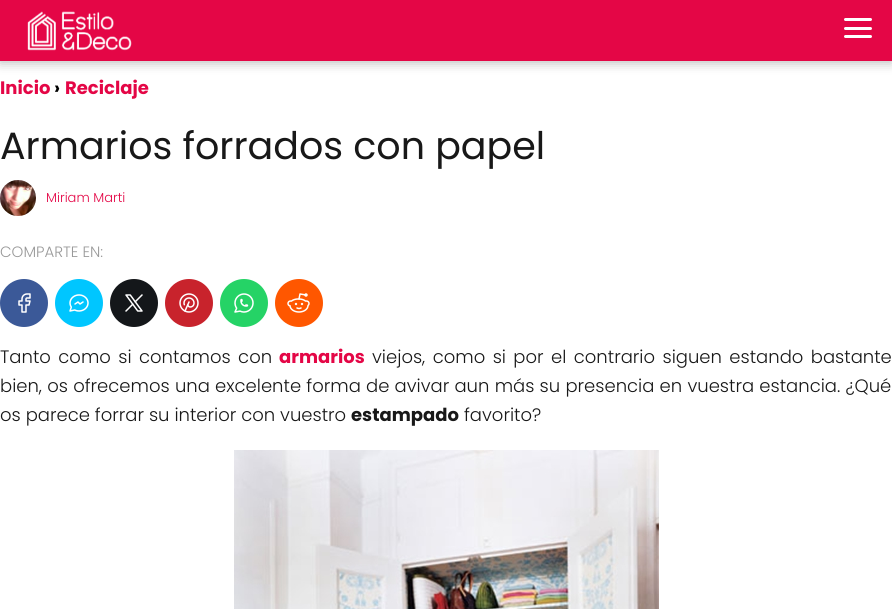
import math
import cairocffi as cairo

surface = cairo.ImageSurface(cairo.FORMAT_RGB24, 892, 609)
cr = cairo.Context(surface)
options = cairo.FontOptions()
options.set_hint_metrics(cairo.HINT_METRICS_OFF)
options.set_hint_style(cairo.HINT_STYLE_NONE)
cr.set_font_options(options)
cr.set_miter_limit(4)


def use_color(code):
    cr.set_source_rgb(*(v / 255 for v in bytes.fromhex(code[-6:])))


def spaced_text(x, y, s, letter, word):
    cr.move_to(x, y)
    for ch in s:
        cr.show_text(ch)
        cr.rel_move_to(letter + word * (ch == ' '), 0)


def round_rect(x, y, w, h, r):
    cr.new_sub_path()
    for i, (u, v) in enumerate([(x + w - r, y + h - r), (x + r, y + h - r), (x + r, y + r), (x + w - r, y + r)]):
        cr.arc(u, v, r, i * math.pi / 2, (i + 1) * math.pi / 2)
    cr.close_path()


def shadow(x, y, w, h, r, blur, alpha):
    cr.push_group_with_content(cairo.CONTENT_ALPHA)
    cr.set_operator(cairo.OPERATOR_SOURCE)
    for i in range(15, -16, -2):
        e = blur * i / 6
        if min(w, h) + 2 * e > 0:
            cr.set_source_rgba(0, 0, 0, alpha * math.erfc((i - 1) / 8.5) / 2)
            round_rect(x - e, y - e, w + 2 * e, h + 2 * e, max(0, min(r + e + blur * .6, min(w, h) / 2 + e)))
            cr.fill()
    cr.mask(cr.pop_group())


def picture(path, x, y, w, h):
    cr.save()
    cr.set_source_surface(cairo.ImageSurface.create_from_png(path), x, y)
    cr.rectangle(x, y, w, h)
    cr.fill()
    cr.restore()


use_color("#ffffff")
cr.paint()
use_color("#000000")
shadow(0, 1, 892, 61, 0, 6, 0.3)
use_color("#e40646")
cr.rectangle(0, 0, 892, 61)
cr.fill()
picture("img1.png", 27, 11, 105, 40)
use_color("#ffffff")
round_rect(844, 18, 28, 3, 1.5)
cr.fill()
round_rect(844, 27, 28, 3, 1.5)
cr.fill()
round_rect(844, 35, 28, 3, 1.5)
cr.fill()
cr.select_font_face("Poppins", cairo.FONT_SLANT_NORMAL, cairo.FONT_WEIGHT_BOLD)
cr.set_font_size(18)
use_color("#e40646")
cr.move_to(0, 94)
cr.show_text("Inicio")
use_color("#000000")
cr.move_to(54, 94)
cr.show_text("›")
use_color("#e40646")
cr.move_to(65, 94)
cr.show_text("Reciclaje")
cr.select_font_face("Poppins")
cr.set_font_size(38)
use_color("#181818")
cr.move_to(0, 159)
cr.show_text("Armarios forrados con papel")
picture("img2.png", 0, 180, 36, 36)
cr.select_font_face("Poppins Light")
cr.set_font_size(13)
use_color("#e40646")
cr.move_to(46, 202)
cr.show_text("Miriam Marti")
cr.set_font_size(15)
use_color("#999999")
cr.move_to(0, 257)
cr.show_text("COMPARTE EN:")
use_color("#3b5998")
cr.new_path()
cr.arc(24, 303, 24, 0, 2 * math.pi)
cr.fill()
picture("img3.png", 18, 293, 13, 20)
use_color("#00c6ff")
cr.arc(79, 303, 24, 0, 2 * math.pi)
cr.fill()
picture("img4.png", 69, 294, 20, 18)
use_color("#14171a")
cr.arc(134, 303, 24, 0, 2 * math.pi)
cr.fill()
picture("img5.png", 125, 294, 18, 18)
use_color("#c8232c")
cr.arc(189, 303, 24, 0, 2 * math.pi)
cr.fill()
picture("img6.png", 179, 293, 20, 20)
use_color("#25d366")
cr.arc(244, 303, 24, 0, 2 * math.pi)
cr.fill()
picture("img7.png", 234, 293, 20, 20)
use_color("#ff5700")
cr.arc(299, 303, 24, 0, 2 * math.pi)
cr.fill()
picture("img8.png", 287, 293, 23, 20)
cr.set_font_size(18)
use_color("#181818")
spaced_text(0, 363, "Tanto como si contamos con", 0, 2.5)
cr.select_font_face("Poppins", cairo.FONT_SLANT_NORMAL, cairo.FONT_WEIGHT_BOLD)
use_color("#e40646")
cr.move_to(279, 363)
cr.show_text("armarios")
cr.select_font_face("Poppins Light")
use_color("#181818")
spaced_text(372, 363, "viejos, como si por el contrario siguen estando bastante", 0, 2.5)
spaced_text(0, 392, "bien, os ofrecemos una excelente forma de avivar aun más su presencia en vuestra estancia. ¿Qué", 0, 0.3)
cr.move_to(0, 421)
cr.show_text("os parece forrar su interior con vuestro")
cr.select_font_face("Poppins", cairo.FONT_SLANT_NORMAL, cairo.FONT_WEIGHT_BOLD)
cr.move_to(351, 421)
cr.show_text("estampado")
cr.select_font_face("Poppins Light")
cr.move_to(464, 421)
cr.show_text("favorito?")
picture("img9.png", 234, 450, 425, 159)
surface.write_to_png("result.png")
